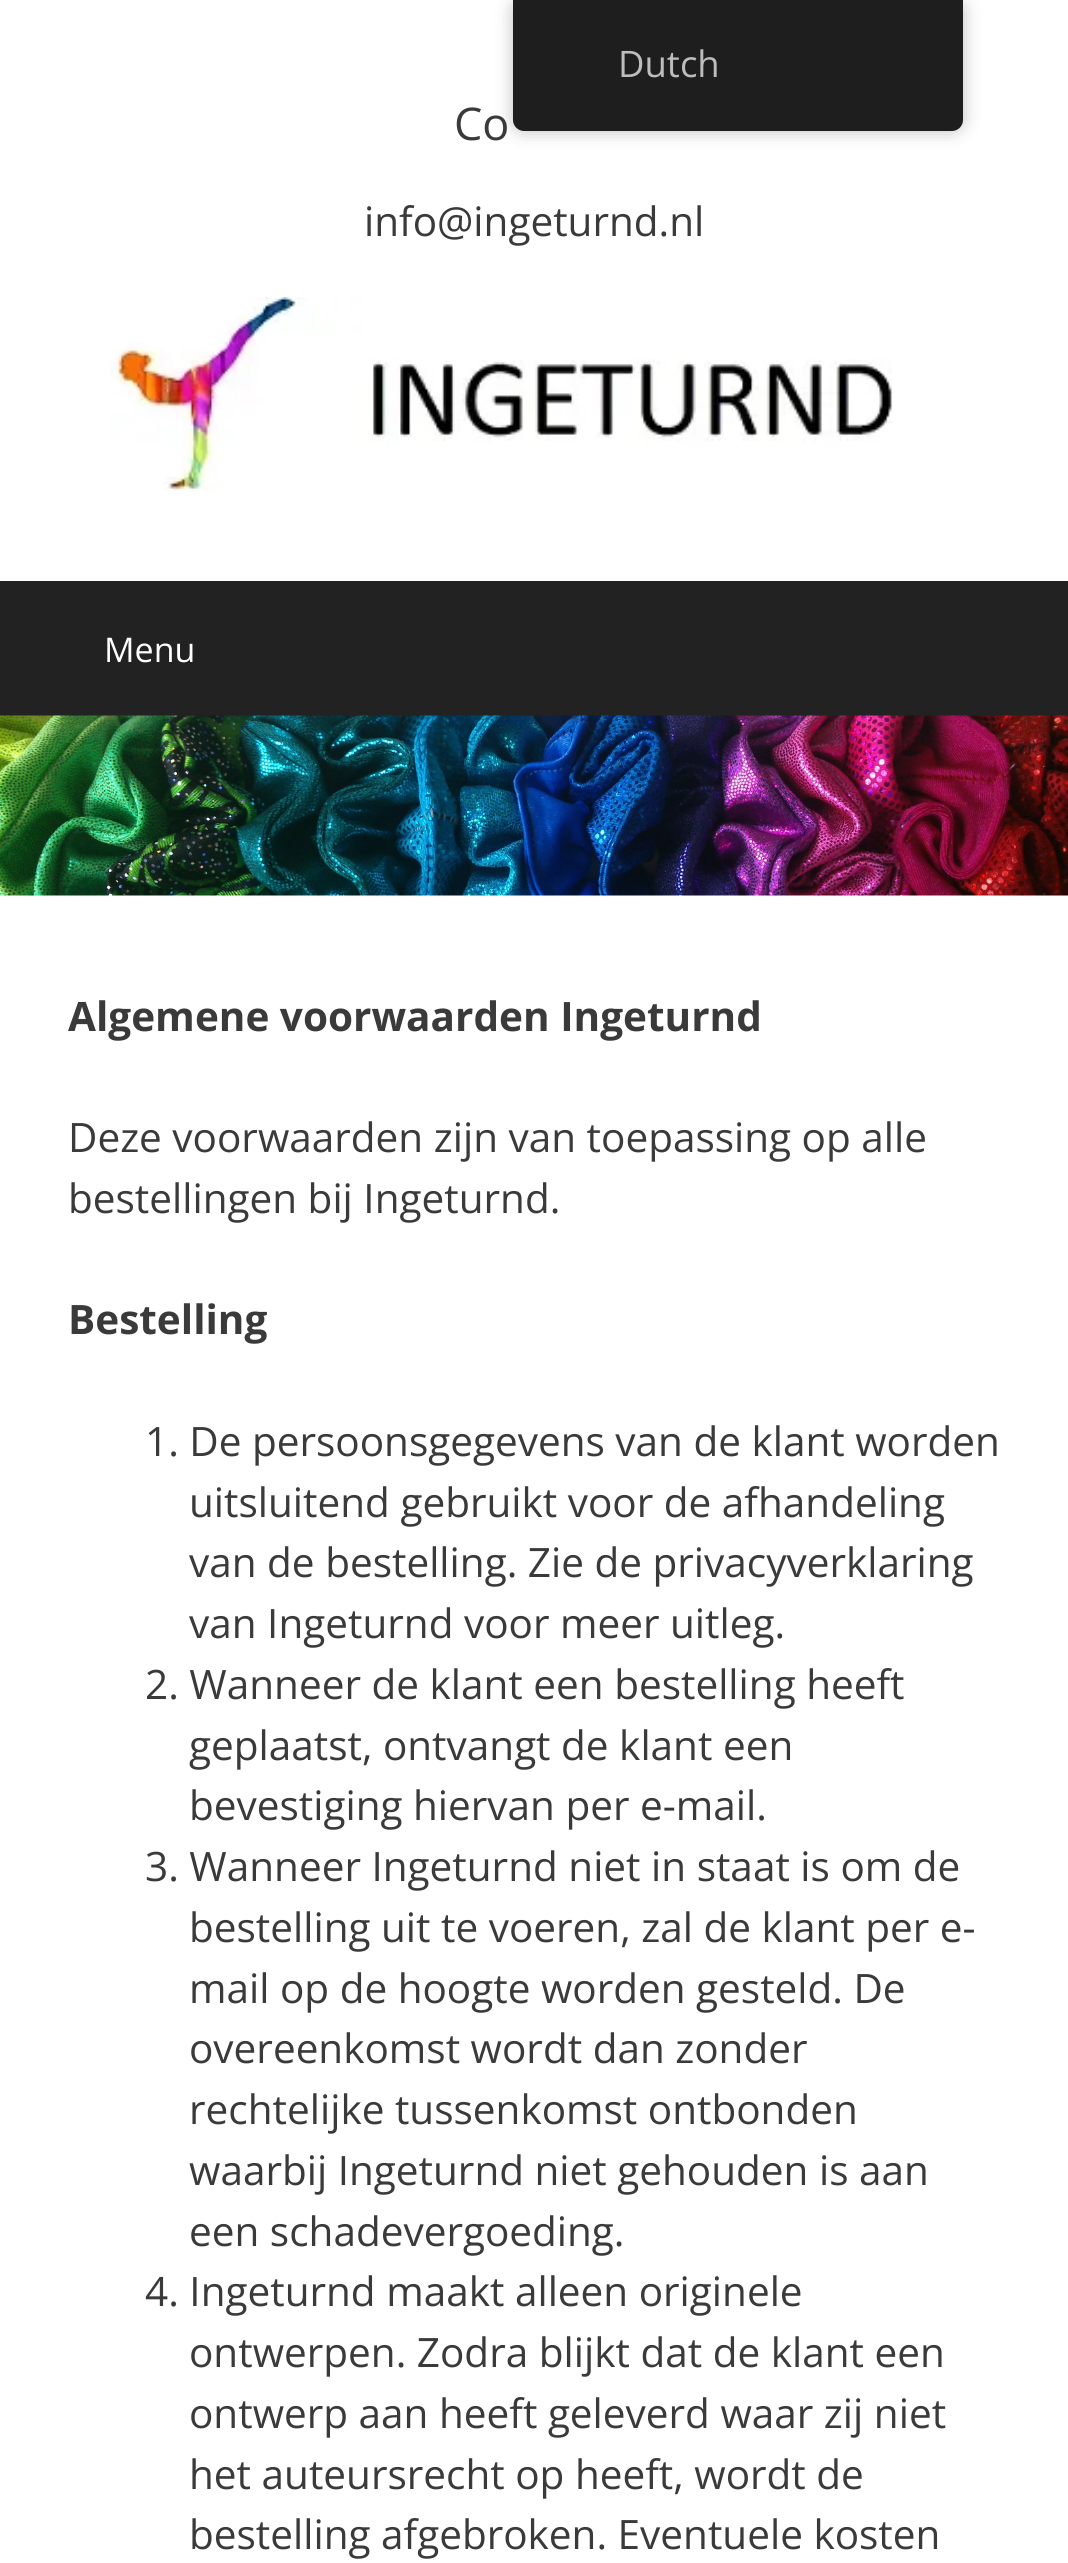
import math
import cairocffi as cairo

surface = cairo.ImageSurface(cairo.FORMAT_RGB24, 1068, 2563)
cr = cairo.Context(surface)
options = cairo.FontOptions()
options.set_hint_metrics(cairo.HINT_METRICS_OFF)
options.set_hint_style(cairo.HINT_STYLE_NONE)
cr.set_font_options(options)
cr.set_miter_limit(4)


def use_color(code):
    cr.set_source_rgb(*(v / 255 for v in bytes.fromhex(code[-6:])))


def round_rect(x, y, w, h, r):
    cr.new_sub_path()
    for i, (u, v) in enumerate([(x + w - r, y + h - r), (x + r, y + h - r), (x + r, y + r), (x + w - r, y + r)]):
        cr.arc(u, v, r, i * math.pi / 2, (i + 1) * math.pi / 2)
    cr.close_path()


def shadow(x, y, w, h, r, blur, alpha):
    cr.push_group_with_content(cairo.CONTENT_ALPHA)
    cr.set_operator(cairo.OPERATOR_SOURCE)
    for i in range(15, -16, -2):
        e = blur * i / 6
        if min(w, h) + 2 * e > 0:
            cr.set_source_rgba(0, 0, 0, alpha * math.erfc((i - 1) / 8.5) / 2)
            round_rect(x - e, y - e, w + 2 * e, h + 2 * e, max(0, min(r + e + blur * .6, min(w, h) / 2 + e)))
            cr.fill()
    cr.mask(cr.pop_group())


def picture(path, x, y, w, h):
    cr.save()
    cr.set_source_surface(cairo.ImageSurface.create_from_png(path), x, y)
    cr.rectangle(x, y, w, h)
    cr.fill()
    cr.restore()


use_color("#ffffff")
cr.paint()
use_color("#000000")
shadow(513, 0, 450, 131, 11, 9, 0.25)
use_color("#1e1e1e")
cr.new_path()
cr.move_to(513, 0)
cr.line_to(963, 0)
cr.line_to(963, 120)
cr.curve_to(963, 126, 958, 131, 952, 131)
cr.line_to(524, 131)
cr.curve_to(518, 131, 513, 126, 513, 120)
cr.close_path()
cr.fill()
cr.select_font_face("Open Sans")
cr.set_font_size(36.5)
use_color("#bdbdbd")
cr.move_to(618, 77)
cr.show_text("Dutch")
cr.set_font_size(45)
use_color("#3a3a3a")
cr.move_to(454, 140)
cr.show_text("Co")
cr.set_font_size(40.5)
cr.move_to(364, 236)
cr.show_text("info@ingeturnd.nl")
picture("img1.png", 110, 297, 783, 194)
use_color("#222222")
cr.rectangle(0, 581, 1068, 135)
cr.fill()
cr.set_font_size(34)
use_color("#ffffff")
cr.move_to(104, 662)
cr.show_text("Menu")
picture("img2.png", 0, 715, 1068, 181)
cr.select_font_face("Open Sans", cairo.FONT_SLANT_NORMAL, cairo.FONT_WEIGHT_BOLD)
cr.set_font_size(40.5)
use_color("#3a3a3a")
cr.move_to(68, 1031)
cr.show_text("Algemene voorwaarden Ingeturnd")
cr.select_font_face("Open Sans")
cr.move_to(68, 1152)
cr.show_text("Deze voorwaarden zijn van toepassing op alle")
cr.move_to(68, 1213)
cr.show_text("bestellingen bij Ingeturnd.")
cr.select_font_face("Open Sans", cairo.FONT_SLANT_NORMAL, cairo.FONT_WEIGHT_BOLD)
cr.move_to(68, 1334)
cr.show_text("Bestelling")
cr.select_font_face("Open Sans")
cr.move_to(145, 1456)
cr.show_text("1. De persoonsgegevens van de klant worden")
cr.move_to(189, 1517)
cr.show_text("uitsluitend gebruikt voor de afhandeling")
cr.move_to(189, 1577)
cr.show_text("van de bestelling. Zie de privacyverklaring")
cr.move_to(189, 1638)
cr.show_text("van Ingeturnd voor meer uitleg.")
cr.move_to(145, 1699)
cr.show_text("2. Wanneer de klant een bestelling heeft")
cr.move_to(189, 1760)
cr.show_text("geplaatst, ontvangt de klant een")
cr.move_to(189, 1820)
cr.show_text("bevestiging hiervan per e-mail.")
cr.move_to(145, 1881)
cr.show_text("3. Wanneer Ingeturnd niet in staat is om de")
cr.move_to(189, 1942)
cr.show_text("bestelling uit te voeren, zal de klant per e-")
cr.move_to(189, 2003)
cr.show_text("mail op de hoogte worden gesteld. De")
cr.move_to(189, 2063)
cr.show_text("overeenkomst wordt dan zonder")
cr.move_to(189, 2124)
cr.show_text("rechtelijke tussenkomst ontbonden")
cr.move_to(189, 2185)
cr.show_text("waarbij Ingeturnd niet gehouden is aan")
cr.move_to(189, 2246)
cr.show_text("een schadevergoeding.")
cr.move_to(145, 2306)
cr.show_text("4. Ingeturnd maakt alleen originele")
cr.move_to(189, 2367)
cr.show_text("ontwerpen. Zodra blijkt dat de klant een")
cr.move_to(189, 2428)
cr.show_text("ontwerp aan heeft geleverd waar zij niet")
cr.move_to(189, 2489)
cr.show_text("het auteursrecht op heeft, wordt de")
cr.move_to(189, 2549)
cr.show_text("bestelling afgebroken. Eventuele kosten")
surface.write_to_png("result.png")
